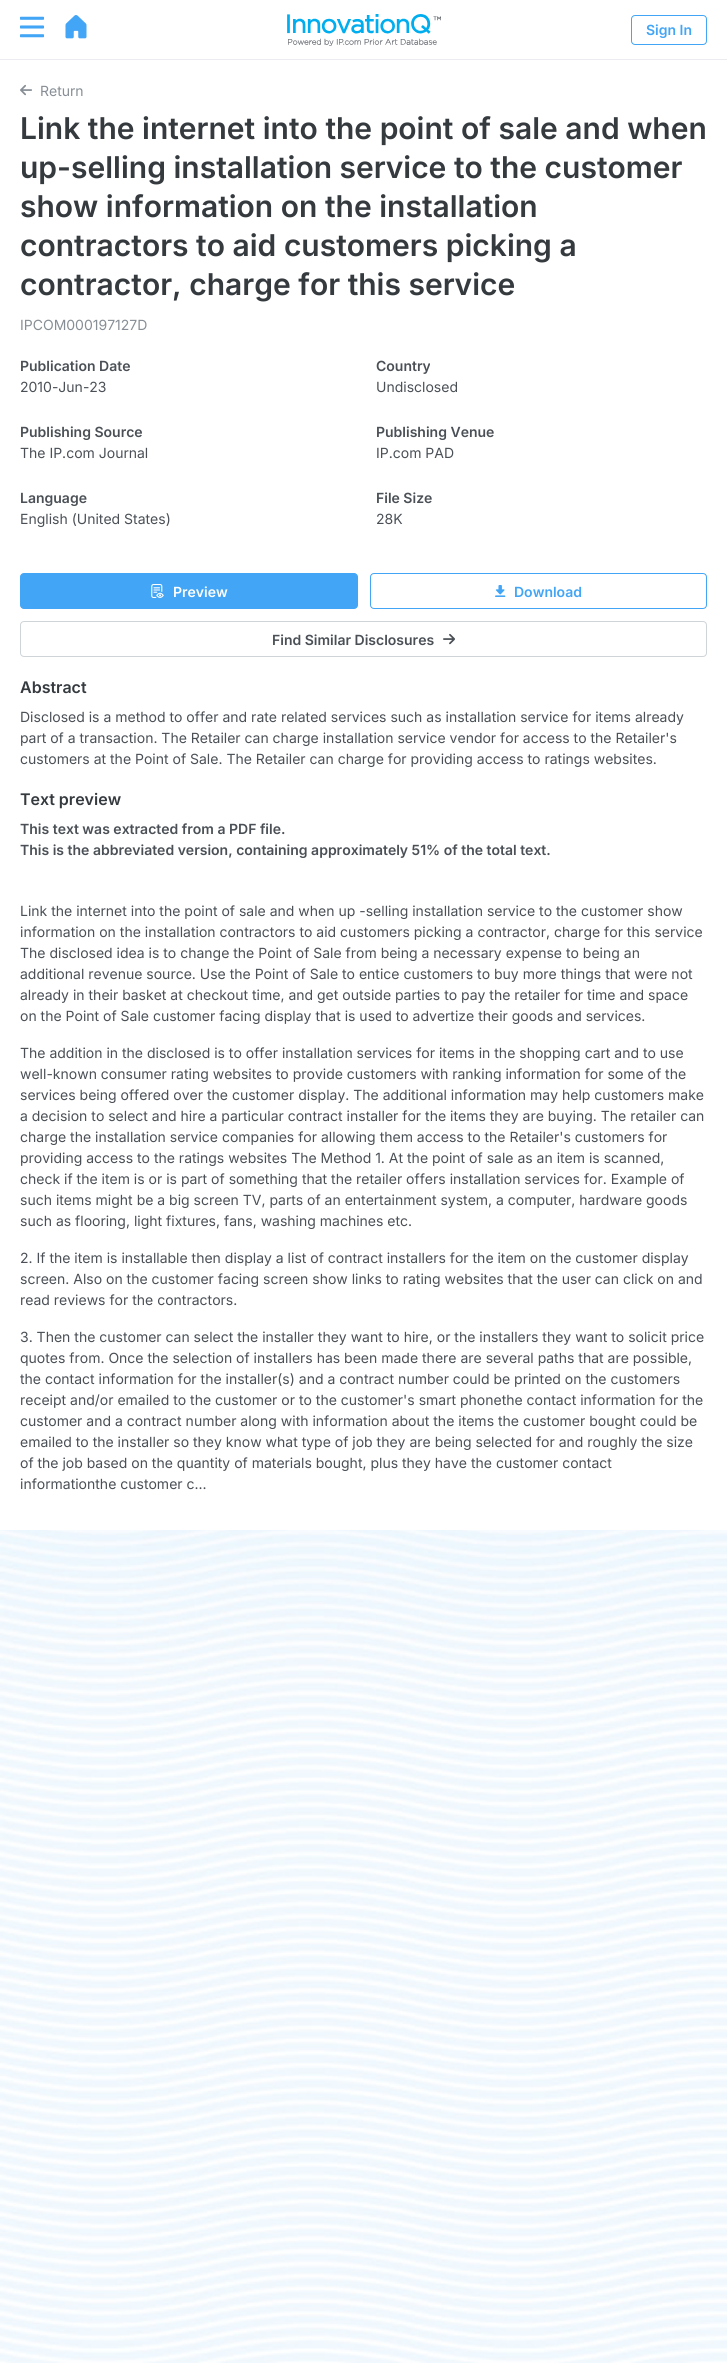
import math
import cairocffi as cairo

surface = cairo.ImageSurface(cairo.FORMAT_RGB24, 727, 2363)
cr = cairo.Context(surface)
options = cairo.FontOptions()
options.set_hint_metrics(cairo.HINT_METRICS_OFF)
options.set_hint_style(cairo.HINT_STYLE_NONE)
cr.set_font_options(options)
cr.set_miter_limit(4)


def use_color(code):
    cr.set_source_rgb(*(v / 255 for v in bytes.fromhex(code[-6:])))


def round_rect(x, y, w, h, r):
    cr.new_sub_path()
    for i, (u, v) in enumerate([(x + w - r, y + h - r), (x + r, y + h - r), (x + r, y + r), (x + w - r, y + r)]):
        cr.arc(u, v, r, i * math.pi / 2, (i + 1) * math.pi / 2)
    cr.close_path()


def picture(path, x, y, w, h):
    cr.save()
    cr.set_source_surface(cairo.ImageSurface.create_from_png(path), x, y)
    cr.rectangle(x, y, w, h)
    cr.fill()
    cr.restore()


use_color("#ffffff")
cr.paint()
use_color("#eaecef")
cr.rectangle(0, 59, 727, 1)
cr.fill()
picture("img1.png", 20, 16, 24, 22)
picture("img2.png", 65, 15, 22, 24)
picture("img3.png", 287, 14, 154, 32)
round_rect(631.5, 15.5, 75, 29, 3.5)
use_color("#42a5f5")
cr.set_line_width(1)
cr.stroke()
cr.select_font_face("Inter SemiBold")
cr.set_font_size(14)
cr.move_to(646, 35)
cr.show_text("Sign In")
picture("img4.png", 20, 84, 12, 12)
cr.select_font_face("Inter")
use_color("#878e95")
cr.move_to(40, 96)
cr.show_text("Return")
cr.select_font_face("Inter SemiBold")
cr.set_font_size(30)
use_color("#353a3f")
cr.move_to(20, 139)
cr.show_text("Link the internet into the point of sale and when")
cr.move_to(20, 178)
cr.show_text("up-selling installation service to the customer")
cr.move_to(20, 217)
cr.show_text("show information on the installation")
cr.move_to(20, 256)
cr.show_text("contractors to aid customers picking a")
cr.move_to(20, 295)
cr.show_text("contractor, charge for this service")
cr.select_font_face("Inter")
cr.set_font_size(14)
use_color("#878e95")
cr.move_to(20, 330)
cr.show_text("IPCOM000197127D")
cr.select_font_face("Inter SemiBold")
use_color("#4a5056")
cr.move_to(20, 371)
cr.show_text("Publication Date")
cr.select_font_face("Inter")
cr.move_to(20, 392)
cr.show_text("2010-Jun-23")
cr.select_font_face("Inter SemiBold")
cr.move_to(376, 371)
cr.show_text("Country")
cr.select_font_face("Inter")
cr.move_to(376, 392)
cr.show_text("Undisclosed")
cr.select_font_face("Inter SemiBold")
cr.move_to(20, 437)
cr.show_text("Publishing Source")
cr.select_font_face("Inter")
cr.move_to(20, 458)
cr.show_text("The IP.com Journal")
cr.select_font_face("Inter SemiBold")
cr.move_to(376, 437)
cr.show_text("Publishing Venue")
cr.select_font_face("Inter")
cr.move_to(376, 458)
cr.show_text("IP.com PAD")
cr.select_font_face("Inter SemiBold")
cr.move_to(20, 503)
cr.show_text("Language")
cr.select_font_face("Inter")
cr.move_to(20, 524)
cr.show_text("English (United States)")
cr.select_font_face("Inter SemiBold")
cr.move_to(376, 503)
cr.show_text("File Size")
cr.select_font_face("Inter")
cr.move_to(376, 524)
cr.show_text("28K")
use_color("#42a5f5")
round_rect(20.5, 573.5, 337, 35, 3.5)
cr.fill_preserve()
cr.stroke()
picture("img5.png", 151, 584, 13, 14)
cr.select_font_face("Inter SemiBold")
use_color("#ffffff")
cr.move_to(173, 597)
cr.show_text("Preview")
round_rect(370.5, 573.5, 336, 35, 3.5)
use_color("#42a5f5")
cr.stroke()
picture("img6.png", 495, 585, 11, 12)
cr.move_to(514, 597)
cr.show_text("Download")
round_rect(20.5, 621.5, 686, 35, 3.5)
use_color("#cfd4d9")
cr.stroke()
use_color("#4a5056")
cr.move_to(272, 645)
cr.show_text("Find Similar Disclosures")
picture("img7.png", 443, 633, 12, 12)
cr.set_font_size(16)
use_color("#353a3f")
cr.move_to(20, 693)
cr.show_text("Abstract")
cr.select_font_face("Inter")
cr.set_font_size(14)
use_color("#4a5056")
cr.move_to(20, 722)
cr.show_text("Disclosed is a method to offer and rate related services such as installation service for items already")
cr.move_to(20, 743)
cr.show_text("part of a transaction. The Retailer can charge installation service vendor for access to the Retailer's")
cr.move_to(20, 764)
cr.show_text("customers at the Point of Sale. The Retailer can charge for providing access to ratings websites.")
cr.select_font_face("Inter SemiBold")
cr.set_font_size(16)
use_color("#353a3f")
cr.move_to(20, 805)
cr.show_text("Text preview")
cr.set_font_size(14)
use_color("#4a5056")
cr.move_to(20, 834)
cr.show_text("This text was extracted from a PDF file.")
cr.move_to(20, 855)
cr.show_text("This is the abbreviated version, containing approximately 51% of the total text.")
cr.select_font_face("Inter")
cr.move_to(20, 916)
cr.show_text("Link the internet into the point of sale and when up -selling installation service to the customer show")
cr.move_to(20, 937)
cr.show_text("information on the installation contractors to aid customers picking a contractor, charge for this service")
cr.move_to(20, 958)
cr.show_text("The disclosed idea is to change the Point of Sale from being a necessary expense to being an")
cr.move_to(20, 979)
cr.show_text("additional revenue source. Use the Point of Sale to entice customers to buy more things that were not")
cr.move_to(20, 1000)
cr.show_text("already in their basket at checkout time, and get outside parties to pay the retailer for time and space")
cr.move_to(20, 1021)
cr.show_text("on the Point of Sale customer facing display that is used to advertize their goods and services.")
cr.move_to(20, 1058)
cr.show_text("The addition in the disclosed is to offer installation services for items in the shopping cart and to use")
cr.move_to(20, 1079)
cr.show_text("well-known consumer rating websites to provide customers with ranking information for some of the")
cr.move_to(20, 1100)
cr.show_text("services being offered over the customer display. The additional information may help customers make")
cr.move_to(20, 1121)
cr.show_text("a decision to select and hire a particular contract installer for the items they are buying. The retailer can")
cr.move_to(20, 1142)
cr.show_text("charge the installation service companies for allowing them access to the Retailer's customers for")
cr.move_to(20, 1163)
cr.show_text("providing access to the ratings websites The Method 1. At the point of sale as an item is scanned,")
cr.move_to(20, 1184)
cr.show_text("check if the item is or is part of something that the retailer offers installation services for. Example of")
cr.move_to(20, 1205)
cr.show_text("such items might be a big screen TV, parts of an entertainment system, a computer, hardware goods")
cr.move_to(20, 1226)
cr.show_text("such as flooring, light fixtures, fans, washing machines etc.")
cr.move_to(20, 1263)
cr.show_text("2. If the item is installable then display a list of contract installers for the item on the customer display")
cr.move_to(20, 1284)
cr.show_text("screen. Also on the customer facing screen show links to rating websites that the user can click on and")
cr.move_to(20, 1305)
cr.show_text("read reviews for the contractors.")
cr.move_to(20, 1342)
cr.show_text("3. Then the customer can select the installer they want to hire, or the installers they want to solicit price")
cr.move_to(20, 1363)
cr.show_text("quotes from. Once the selection of installers has been made there are several paths that are possible,")
cr.move_to(20, 1384)
cr.show_text("the contact information for the installer(s) and a contract number could be printed on the customers")
cr.move_to(20, 1405)
cr.show_text("receipt and/or emailed to the customer or to the customer's smart phonethe contact information for the")
cr.move_to(20, 1426)
cr.show_text("customer and a contract number along with information about the items the customer bought could be")
cr.move_to(20, 1447)
cr.show_text("emailed to the installer so they know what type of job they are being selected for and roughly the size")
cr.move_to(20, 1468)
cr.show_text("of the job based on the quantity of materials bought, plus they have the customer contact")
cr.move_to(20, 1489)
cr.show_text("informationthe customer c...")
picture("img8.png", 0, 1530, 727, 833)
surface.write_to_png("result.png")
